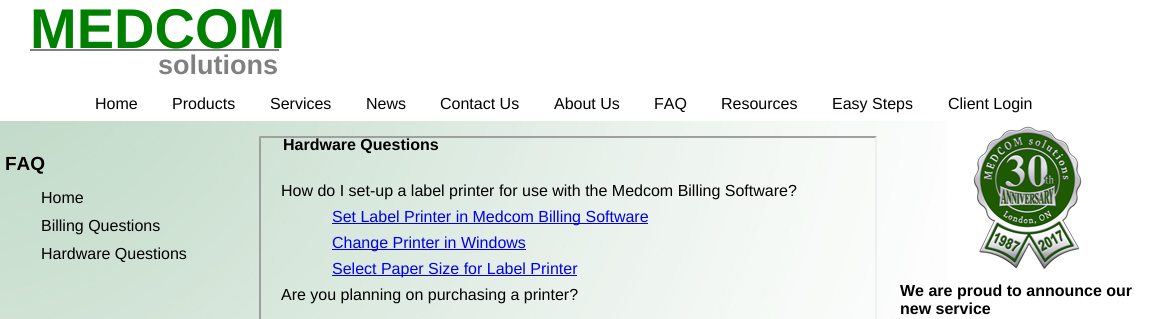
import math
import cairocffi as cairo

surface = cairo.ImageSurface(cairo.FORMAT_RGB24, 1160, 319)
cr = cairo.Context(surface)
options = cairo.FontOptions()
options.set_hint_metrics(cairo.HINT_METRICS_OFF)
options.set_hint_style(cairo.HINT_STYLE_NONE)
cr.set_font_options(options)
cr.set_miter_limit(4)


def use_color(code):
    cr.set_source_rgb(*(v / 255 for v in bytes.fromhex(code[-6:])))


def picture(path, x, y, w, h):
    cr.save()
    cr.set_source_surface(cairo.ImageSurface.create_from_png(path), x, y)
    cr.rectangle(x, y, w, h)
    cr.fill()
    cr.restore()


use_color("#ffffff")
cr.paint()
picture("img1.png", 0, 121, 947, 198)
cr.select_font_face("Liberation Sans", cairo.FONT_SLANT_NORMAL, cairo.FONT_WEIGHT_BOLD)
cr.set_font_size(56)
use_color("#008000")
cr.move_to(30, 48)
cr.show_text("MEDCOM")
cr.set_font_size(27)
use_color("#808080")
cr.move_to(158, 74)
cr.show_text("solutions")
cr.rectangle(30, 49, 249, 2)
cr.fill()
cr.select_font_face("Liberation Sans")
cr.set_font_size(16)
use_color("#000000")
cr.move_to(95, 109)
cr.show_text("Home")
cr.move_to(172, 109)
cr.show_text("Products")
cr.move_to(270, 109)
cr.show_text("Services")
cr.move_to(366, 109)
cr.show_text("News")
cr.move_to(440, 109)
cr.show_text("Contact Us")
cr.move_to(554, 109)
cr.show_text("About Us")
cr.move_to(654, 109)
cr.show_text("FAQ")
cr.move_to(721, 109)
cr.show_text("Resources")
cr.move_to(832, 109)
cr.show_text("Easy Steps")
cr.move_to(948, 109)
cr.show_text("Client Login")
cr.select_font_face("Liberation Sans", cairo.FONT_SLANT_NORMAL, cairo.FONT_WEIGHT_BOLD)
cr.set_font_size(19)
cr.move_to(5, 170)
cr.show_text("FAQ")
cr.select_font_face("Liberation Sans")
cr.set_font_size(16)
cr.move_to(41, 203)
cr.show_text("Home")
cr.move_to(41, 231)
cr.show_text("Billing Questions")
cr.move_to(41, 259)
cr.show_text("Hardware Questions")
use_color("#9f9f9f")
cr.new_path()
cr.move_to(259, 136)
cr.line_to(877, 136)
cr.line_to(875, 138)
cr.line_to(261, 138)
cr.close_path()
cr.fill()
use_color("#efefef")
cr.new_path()
cr.move_to(877, 136)
cr.line_to(877, 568)
cr.line_to(875, 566)
cr.line_to(875, 138)
cr.close_path()
cr.fill()
use_color("#9f9f9f")
cr.new_path()
cr.move_to(259, 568)
cr.line_to(259, 136)
cr.line_to(261, 138)
cr.line_to(261, 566)
cr.close_path()
cr.fill()
cr.select_font_face("Liberation Sans", cairo.FONT_SLANT_NORMAL, cairo.FONT_WEIGHT_BOLD)
use_color("#000000")
cr.move_to(283, 150)
cr.show_text("Hardware Questions")
cr.select_font_face("Liberation Sans")
cr.move_to(281, 196)
cr.show_text("How do I set-up a label printer for use with the Medcom Billing Software?")
use_color("#0000ee")
cr.rectangle(332, 223, 316, 1)
cr.fill()
cr.move_to(332, 222)
cr.show_text("Set Label Printer in Medcom Billing Software")
cr.rectangle(332, 249, 194, 1)
cr.fill()
cr.move_to(332, 248)
cr.show_text("Change Printer in Windows")
cr.rectangle(332, 275, 245, 1)
cr.fill()
cr.move_to(332, 274)
cr.show_text("Select Paper Size for Label Printer")
use_color("#000000")
cr.move_to(281, 300)
cr.show_text("Are you planning on purchasing a printer?")
picture("img2.png", 973, 126, 109, 143)
cr.select_font_face("Liberation Sans", cairo.FONT_SLANT_NORMAL, cairo.FONT_WEIGHT_BOLD)
cr.move_to(900, 296)
cr.show_text("We are proud to announce our")
cr.move_to(900, 314)
cr.show_text("new service")
surface.write_to_png("result.png")
